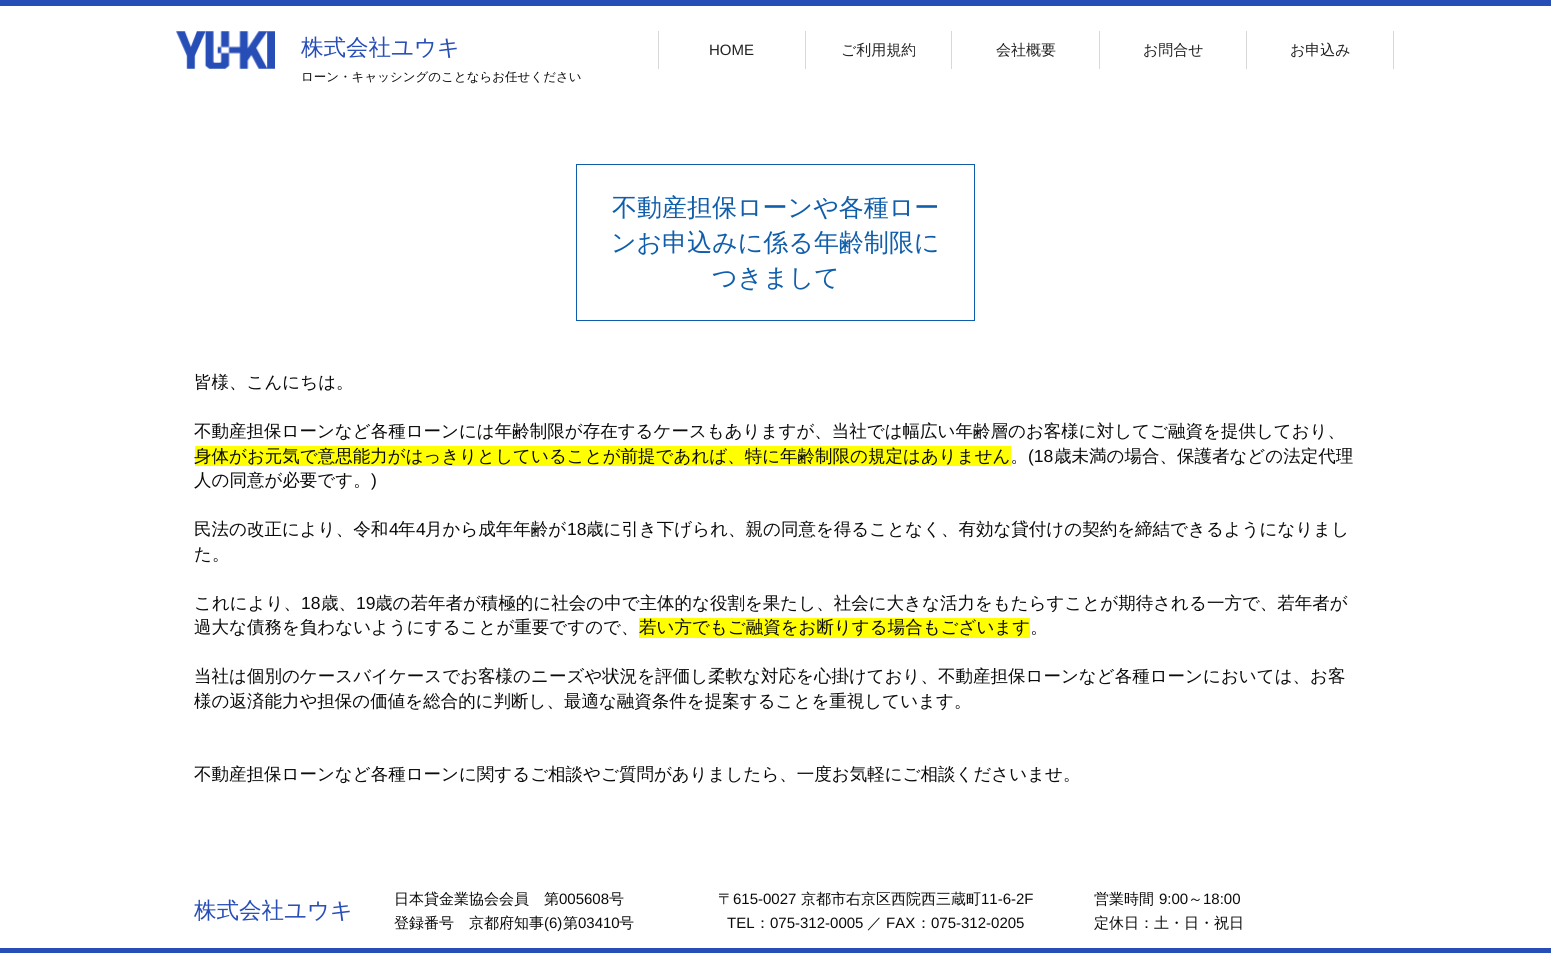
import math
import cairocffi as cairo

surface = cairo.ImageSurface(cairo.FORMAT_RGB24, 1551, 953)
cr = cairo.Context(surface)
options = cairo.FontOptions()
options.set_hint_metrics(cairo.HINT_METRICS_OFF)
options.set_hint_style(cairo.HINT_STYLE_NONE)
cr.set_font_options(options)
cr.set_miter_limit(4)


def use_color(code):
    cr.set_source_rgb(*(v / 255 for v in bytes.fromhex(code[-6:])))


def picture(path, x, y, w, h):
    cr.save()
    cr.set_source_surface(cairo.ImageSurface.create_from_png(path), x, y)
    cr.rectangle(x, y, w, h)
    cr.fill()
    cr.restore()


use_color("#ffffff")
cr.paint()
use_color("#274db7")
cr.rectangle(0, 0, 1551, 6)
cr.fill()
picture("img1.png", 176, 31, 99, 38)
cr.select_font_face("WenQuanYi Zen Hei Medium")
cr.set_font_size(22.5)
cr.move_to(301, 55)
cr.show_text("株式会社ユウキ")
cr.set_font_size(12.5)
use_color("#0a0a0a")
cr.move_to(301, 81)
cr.show_text("ローン・キャッシングのことならお任せください")
use_color("#d8d8d8")
cr.rectangle(658, 31, 1, 38)
cr.fill()
cr.select_font_face("Liberation Sans")
cr.set_font_size(15)
use_color("#222222")
cr.move_to(709, 55)
cr.show_text("HOME")
use_color("#d8d8d8")
cr.rectangle(805, 31, 1, 38)
cr.fill()
cr.select_font_face("WenQuanYi Zen Hei Medium")
use_color("#222222")
cr.move_to(841, 55)
cr.show_text("ご利用規約")
use_color("#d8d8d8")
cr.rectangle(951, 31, 1, 38)
cr.fill()
use_color("#222222")
cr.move_to(996, 55)
cr.show_text("会社概要")
use_color("#d8d8d8")
cr.rectangle(1099, 31, 1, 38)
cr.fill()
use_color("#222222")
cr.move_to(1143, 55)
cr.show_text("お問合せ")
use_color("#d8d8d8")
cr.rectangle(1393, 31, 1, 38)
cr.fill()
cr.rectangle(1246, 31, 1, 38)
cr.fill()
use_color("#222222")
cr.move_to(1290, 55)
cr.show_text("お申込み")
cr.rectangle(576.5, 164.5, 398, 156)
use_color("#105eaa")
cr.set_line_width(1)
cr.stroke()
cr.set_font_size(25)
cr.move_to(612, 216)
cr.show_text("不動産担保ローンや各種ロー")
cr.move_to(611, 251)
cr.show_text("ンお申込みに係る年齢制限に")
cr.move_to(712, 286)
cr.show_text("つきまして")
cr.set_font_size(17.5)
use_color("#0a0a0a")
cr.move_to(194, 388)
cr.show_text("皆様、こんにちは。")
cr.move_to(194, 437)
cr.show_text("不動産担保ローンなど各種ローンには年齢制限が存在するケースもありますが、当社では幅広い年齢層のお客様に対してご融資を提供しており、")
use_color("#ffff00")
cr.rectangle(195, 446, 816, 20)
cr.fill()
use_color("#0a0a0a")
cr.move_to(194, 462)
cr.show_text("身体がお元気で意思能力がはっきりとしていることが前提であれば、特に年齢制限の規定はありません。")
cr.select_font_face("Liberation Sans")
cr.move_to(1028, 462)
cr.show_text("(18")
cr.select_font_face("WenQuanYi Zen Hei Medium")
cr.move_to(1054, 462)
cr.show_text("歳未満の場合、保護者などの法定代理")
cr.move_to(194, 486)
cr.show_text("人の同意が必要です。")
cr.select_font_face("Liberation Sans")
cr.move_to(371, 486)
cr.show_text(")")
cr.select_font_face("WenQuanYi Zen Hei Medium")
cr.move_to(194, 535)
cr.show_text("民法の改正により、令和")
cr.select_font_face("Liberation Sans")
cr.move_to(389, 535)
cr.show_text("4")
cr.select_font_face("WenQuanYi Zen Hei Medium")
cr.move_to(398, 535)
cr.show_text("年")
cr.select_font_face("Liberation Sans")
cr.move_to(416, 535)
cr.show_text("4")
cr.select_font_face("WenQuanYi Zen Hei Medium")
cr.move_to(425, 535)
cr.show_text("月から成年年齢が")
cr.select_font_face("Liberation Sans")
cr.move_to(567, 535)
cr.show_text("18")
cr.select_font_face("WenQuanYi Zen Hei Medium")
cr.move_to(586, 535)
cr.show_text("歳に引き下げられ、親の同意を得ることなく、有効な貸付けの契約を締結できるようになりまし")
cr.move_to(194, 560)
cr.show_text("た。")
cr.move_to(194, 609)
cr.show_text("これにより、")
cr.select_font_face("Liberation Sans")
cr.move_to(301, 609)
cr.show_text("18")
cr.select_font_face("WenQuanYi Zen Hei Medium")
cr.move_to(321, 609)
cr.show_text("歳、")
cr.select_font_face("Liberation Sans")
cr.move_to(356, 609)
cr.show_text("19")
cr.select_font_face("WenQuanYi Zen Hei Medium")
cr.move_to(375, 609)
cr.show_text("歳の若年者が積極的に社会の中で主体的な役割を果たし、社会に大きな活力をもたらすことが期待される一方で、若年者が")
cr.move_to(194, 633)
cr.show_text("過大な債務を負わないようにすることが重要ですので、")
use_color("#ffff00")
cr.rectangle(639, 618, 391, 20)
cr.fill()
use_color("#0a0a0a")
cr.move_to(639, 633)
cr.show_text("若い方でもご融資をお断りする場合もございます。")
cr.move_to(194, 682)
cr.show_text("当社は個別のケースバイケースでお客様のニーズや状況を評価し柔軟な対応を心掛けており、不動産担保ローンなど各種ローンにおいては、お客")
cr.move_to(194, 707)
cr.show_text("様の返済能力や担保の価値を総合的に判断し、最適な融資条件を提案することを重視しています。")
cr.move_to(194, 780)
cr.show_text("不動産担保ローンなど各種ローンに関するご相談やご質問がありましたら、一度お気軽にご相談くださいませ。")
cr.set_font_size(22.5)
use_color("#274db7")
cr.move_to(194, 918)
cr.show_text("株式会社ユウキ")
cr.set_font_size(15)
use_color("#0a0a0a")
cr.move_to(394, 904)
cr.show_text("日本貸金業協会会員　第")
cr.select_font_face("Liberation Sans")
cr.move_to(559, 904)
cr.show_text("005608")
cr.select_font_face("WenQuanYi Zen Hei Medium")
cr.move_to(609, 904)
cr.show_text("号")
cr.move_to(394, 928)
cr.show_text("登録番号　京都府知事")
cr.select_font_face("Liberation Sans")
cr.move_to(544, 928)
cr.show_text("(6)")
cr.select_font_face("WenQuanYi Zen Hei Medium")
cr.move_to(563, 928)
cr.show_text("第")
cr.select_font_face("Liberation Sans")
cr.move_to(578, 928)
cr.show_text("03410")
cr.select_font_face("WenQuanYi Zen Hei Medium")
cr.move_to(619, 928)
cr.show_text("号")
cr.move_to(718, 904)
cr.show_text("〒")
cr.select_font_face("Liberation Sans")
cr.move_to(733, 904)
cr.show_text("615-0027")
cr.select_font_face("WenQuanYi Zen Hei Medium")
cr.move_to(801, 904)
cr.show_text("京都市右京区西院西三蔵町")
cr.select_font_face("Liberation Sans")
cr.move_to(981, 904)
cr.show_text("11-6-2F")
cr.move_to(727, 928)
cr.show_text("TEL")
cr.select_font_face("WenQuanYi Zen Hei Medium")
cr.move_to(755, 928)
cr.show_text("：")
cr.select_font_face("Liberation Sans")
cr.move_to(770, 928)
cr.show_text("075-312-0005")
cr.select_font_face("WenQuanYi Zen Hei Medium")
cr.move_to(867, 928)
cr.show_text("／")
cr.select_font_face("Liberation Sans")
cr.move_to(886, 928)
cr.show_text("FAX")
cr.select_font_face("WenQuanYi Zen Hei Medium")
cr.move_to(916, 928)
cr.show_text("：")
cr.select_font_face("Liberation Sans")
cr.move_to(931, 928)
cr.show_text("075-312-0205")
cr.select_font_face("WenQuanYi Zen Hei Medium")
cr.move_to(1094, 904)
cr.show_text("営業時間")
cr.select_font_face("Liberation Sans")
cr.move_to(1159, 904)
cr.show_text("9:00")
cr.select_font_face("WenQuanYi Zen Hei Medium")
cr.move_to(1188, 904)
cr.show_text("～")
cr.select_font_face("Liberation Sans")
cr.move_to(1203, 904)
cr.show_text("18:00")
cr.select_font_face("WenQuanYi Zen Hei Medium")
cr.move_to(1094, 928)
cr.show_text("定休日：土・日・祝日")
use_color("#274db7")
cr.rectangle(0, 948, 1551, 5)
cr.fill()
surface.write_to_png("result.png")
